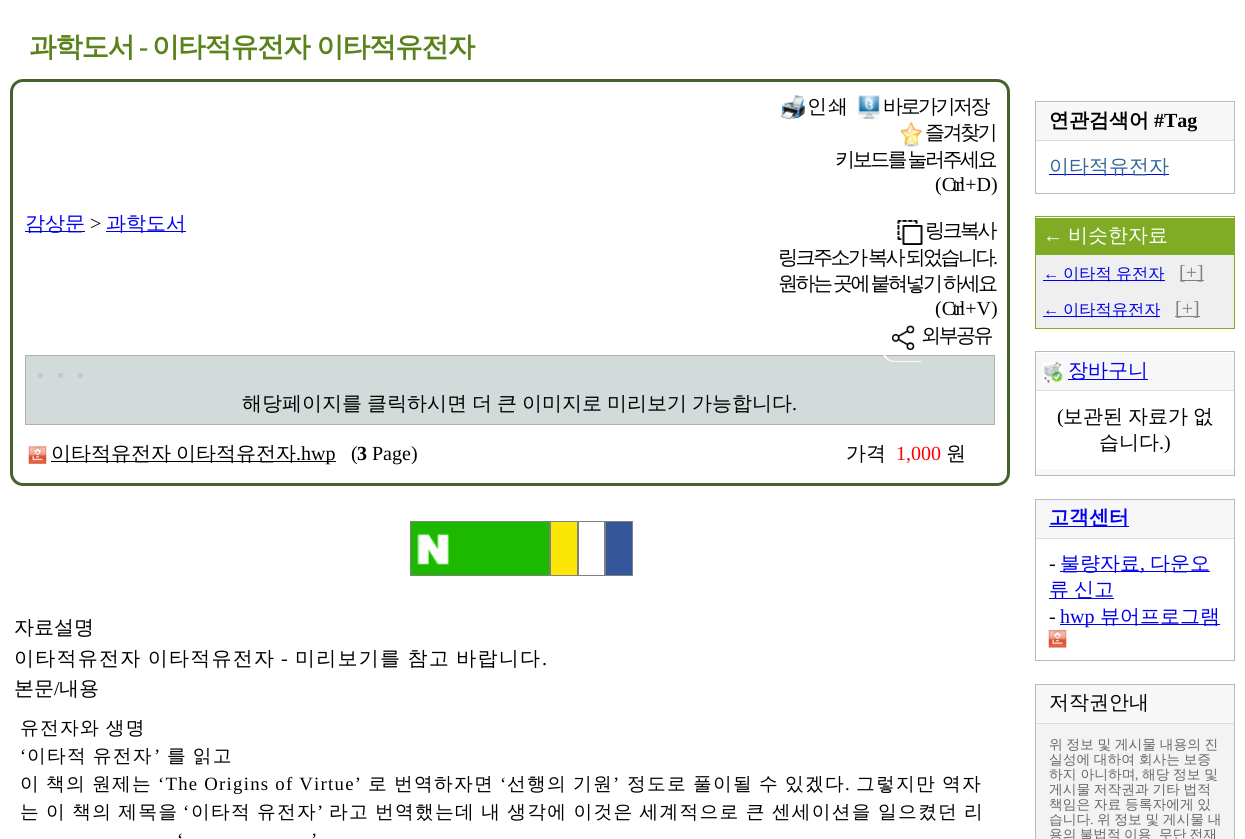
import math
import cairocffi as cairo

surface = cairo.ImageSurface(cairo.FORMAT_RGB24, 1245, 839)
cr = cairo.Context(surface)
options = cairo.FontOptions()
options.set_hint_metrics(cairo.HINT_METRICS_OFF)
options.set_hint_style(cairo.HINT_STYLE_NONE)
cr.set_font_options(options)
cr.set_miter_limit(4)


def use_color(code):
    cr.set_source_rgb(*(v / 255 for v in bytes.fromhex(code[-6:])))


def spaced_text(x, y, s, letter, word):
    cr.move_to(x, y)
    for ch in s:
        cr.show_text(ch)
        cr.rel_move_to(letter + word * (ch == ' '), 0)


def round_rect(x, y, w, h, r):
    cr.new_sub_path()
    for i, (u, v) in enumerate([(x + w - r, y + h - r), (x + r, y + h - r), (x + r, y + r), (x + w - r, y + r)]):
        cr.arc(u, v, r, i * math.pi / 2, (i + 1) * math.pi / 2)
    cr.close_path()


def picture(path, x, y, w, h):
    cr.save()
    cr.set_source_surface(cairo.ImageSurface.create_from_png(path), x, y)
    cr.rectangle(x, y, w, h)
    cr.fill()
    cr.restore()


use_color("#ffffff")
cr.paint()
cr.select_font_face("WenQuanYi Zen Hei", cairo.FONT_SLANT_NORMAL, cairo.FONT_WEIGHT_BOLD)
cr.set_font_size(27.5)
use_color("#598219")
spaced_text(29, 56, "과학도서", -1.25, 0)
cr.select_font_face("Liberation Serif", cairo.FONT_SLANT_NORMAL, cairo.FONT_WEIGHT_BOLD)
spaced_text(139, 56, "-", -1.25, 0)
cr.select_font_face("WenQuanYi Zen Hei", cairo.FONT_SLANT_NORMAL, cairo.FONT_WEIGHT_BOLD)
spaced_text(152, 56, "이타적유전자 이타적유전자", -1.25, 0)
round_rect(11.5, 80.5, 997, 404, 11.5)
use_color("#44622c")
cr.set_line_width(3)
cr.stroke()
use_color("#0000ee")
cr.rectangle(25, 231, 60, 1)
cr.fill()
cr.select_font_face("WenQuanYi Zen Hei Medium")
cr.set_font_size(20)
cr.move_to(25, 230)
cr.show_text("감상문")
cr.select_font_face("Liberation Serif")
use_color("#000000")
cr.move_to(90, 230)
cr.show_text(">")
use_color("#0000ee")
cr.rectangle(106, 231, 80, 1)
cr.fill()
cr.select_font_face("WenQuanYi Zen Hei Medium")
cr.move_to(106, 230)
cr.show_text("과학도서")
picture("img1.png", 780, 95, 25, 25)
use_color("#000000")
spaced_text(807, 113, "인 쇄", -2.5, 0)
picture("img2.png", 858, 95, 22, 25)
spaced_text(883, 113, "바로가기저장", -2.5, 0)
picture("img3.png", 900, 122, 23, 25)
spaced_text(925, 139, "즐겨찾기", -2.5, 0)
spaced_text(835, 166, "키보드를 눌러주세요", -2.5, -1)
cr.select_font_face("Liberation Serif")
spaced_text(935, 191, "( Ctrl + D )", -2.5, 0)
picture("img4.png", 897, 220, 26, 25)
cr.select_font_face("WenQuanYi Zen Hei Medium")
spaced_text(925, 237, "링크복사", -2.5, 0)
spaced_text(778, 264, "링크주소가 복사 되었습니다", -2.5, -1)
cr.select_font_face("Liberation Serif")
spaced_text(993, 264, ".", -2.5, 0)
cr.select_font_face("WenQuanYi Zen Hei Medium")
spaced_text(778, 290, "원하는 곳에 붙혀넣기 하세요", -2.5, -1)
cr.select_font_face("Liberation Serif")
spaced_text(935, 315, "( Ctrl + V )", -2.5, 0)
cr.rectangle(25.5, 355.5, 969, 69)
use_color("#afafaf")
cr.set_line_width(1)
cr.stroke()
use_color("#d2dada")
cr.rectangle(26, 356, 968, 68)
cr.fill()
use_color("#ffffff")
cr.set_fill_rule(cairo.FILL_RULE_EVEN_ODD)
cr.new_path()
cr.move_to(895, 312)
cr.line_to(921, 312)
cr.line_to(921, 362)
cr.line_to(895, 362)
cr.curve_to(888, 362, 882, 357, 882, 350)
cr.line_to(882, 325)
cr.curve_to(882, 318, 888, 312, 895, 312)
cr.close_path()
cr.move_to(895, 314)
cr.line_to(921, 314)
cr.line_to(921, 361)
cr.line_to(895, 361)
cr.curve_to(889, 361, 884, 356, 884, 350)
cr.line_to(884, 325)
cr.curve_to(884, 319, 889, 314, 895, 314)
cr.close_path()
cr.fill()
picture("img5.png", 892, 325, 23, 25)
cr.new_path()
cr.move_to(921, 318)
cr.line_to(982, 318)
cr.curve_to(989, 318, 995, 323, 995, 330)
cr.line_to(995, 341)
cr.curve_to(995, 348, 989, 354, 982, 354)
cr.line_to(921, 354)
cr.close_path()
cr.move_to(921, 319)
cr.line_to(982, 319)
cr.curve_to(989, 319, 994, 324, 994, 330)
cr.line_to(994, 341)
cr.curve_to(994, 347, 989, 352, 982, 352)
cr.line_to(921, 352)
cr.close_path()
cr.fill()
cr.select_font_face("WenQuanYi Zen Hei Medium")
use_color("#000000")
spaced_text(921, 342, "외부공유", -2.5, 0)
use_color("#c2caca")
cr.rectangle(38, 373, 5, 5)
cr.fill()
cr.rectangle(58, 373, 5, 5)
cr.fill()
cr.rectangle(78, 373, 5, 5)
cr.fill()
use_color("#000000")
cr.move_to(242, 410)
cr.show_text("해당페이지를")
cr.move_to(367, 410)
cr.show_text("클릭하시면")
spaced_text(472, 410, "더 큰 이미지로", 0, -1)
spaced_text(607, 410, "미리보기 가능", 0, -1)
cr.move_to(732, 410)
cr.show_text("합니다")
cr.select_font_face("Liberation Serif")
cr.move_to(792, 410)
cr.show_text(".")
picture("img6.png", 28, 446, 19, 18)
cr.rectangle(51, 461, 285, 1)
cr.fill()
cr.select_font_face("WenQuanYi Zen Hei Medium")
spaced_text(51, 460, "이타적유전자 이타적유전자", 0, -1)
cr.select_font_face("Liberation Serif")
cr.move_to(296, 460)
cr.show_text(".hwp")
cr.move_to(351, 460)
cr.show_text("(")
cr.select_font_face("Liberation Serif", cairo.FONT_SLANT_NORMAL, cairo.FONT_WEIGHT_BOLD)
cr.move_to(357, 460)
cr.show_text("3")
cr.select_font_face("Liberation Serif")
cr.move_to(372, 460)
cr.show_text("Page)")
cr.select_font_face("WenQuanYi Zen Hei Medium")
cr.move_to(846, 460)
cr.show_text("가격")
cr.select_font_face("Liberation Serif")
use_color("#ff0000")
cr.move_to(896, 460)
cr.show_text("1,000")
cr.select_font_face("WenQuanYi Zen Hei Medium")
use_color("#000000")
cr.move_to(946, 460)
cr.show_text("원")
use_color("#1cb900")
cr.rectangle(410.5, 521.5, 139, 54)
cr.fill_preserve()
use_color("#808080")
cr.stroke()
picture("img7.png", 417, 533, 32, 32)
use_color("#fce604")
cr.rectangle(550.5, 521.5, 27, 54)
cr.fill_preserve()
use_color("#808080")
cr.stroke()
cr.rectangle(578.5, 521.5, 26, 54)
cr.stroke()
use_color("#35569a")
cr.rectangle(605.5, 521.5, 27, 54)
cr.fill_preserve()
use_color("#808080")
cr.stroke()
use_color("#000000")
cr.move_to(14, 634)
cr.show_text("자료설명")
spaced_text(14, 665, "이타적유전자 이타적유전자", 1.25, -1)
cr.select_font_face("Liberation Serif")
spaced_text(281, 665, "-", 1.25, 0)
cr.select_font_face("WenQuanYi Zen Hei Medium")
spaced_text(295, 665, "미리보기를 참고 바랍니다", 1.25, -1)
cr.select_font_face("Liberation Serif")
spaced_text(542, 665, ".", 1.25, 0)
cr.select_font_face("WenQuanYi Zen Hei Medium")
cr.move_to(14, 695)
cr.show_text("본문")
cr.select_font_face("Liberation Serif")
cr.move_to(54, 695)
cr.show_text("/")
cr.select_font_face("WenQuanYi Zen Hei Medium")
cr.move_to(59, 695)
cr.show_text("내용")
cr.set_font_size(18.75)
spaced_text(20, 734, "유전자와 생명", 1.25, -1)
cr.select_font_face("Liberation Serif")
spaced_text(20, 762, "‘", 1.25, 0)
cr.select_font_face("WenQuanYi Zen Hei Medium")
spaced_text(27, 762, "이타적 유전자", 1.25, -1)
cr.select_font_face("Liberation Serif")
spaced_text(154, 762, "’", 1.25, 0)
cr.select_font_face("WenQuanYi Zen Hei Medium")
spaced_text(167, 762, "를 읽고", 1.25, -1)
spaced_text(20, 790, "이", 1.25, 0)
spaced_text(46, 790, "책의", 1.25, 0)
spaced_text(92, 790, "원제는", 1.25, 0)
cr.select_font_face("Liberation Serif")
spaced_text(158, 790, "‘The Origins of Virtue’", 1.25, 0)
cr.select_font_face("WenQuanYi Zen Hei Medium")
spaced_text(368, 790, "로", 1.25, 0)
spaced_text(394, 790, "번역하자면", 1.25, 0)
cr.select_font_face("Liberation Serif")
spaced_text(500, 790, "‘", 1.25, 0)
cr.select_font_face("WenQuanYi Zen Hei Medium")
spaced_text(507, 790, "선행의", 1.25, 0)
spaced_text(573, 790, "기원", 1.25, 0)
cr.select_font_face("Liberation Serif")
spaced_text(613, 790, "’", 1.25, 0)
cr.select_font_face("WenQuanYi Zen Hei Medium")
spaced_text(627, 790, "정도로", 1.25, 0)
spaced_text(693, 790, "풀이될", 1.25, 0)
spaced_text(759, 790, "수", 1.25, 0)
spaced_text(785, 790, "있겠다", 1.25, 0)
spaced_text(856, 790, "그렇지만", 1.25, 0)
spaced_text(942, 790, "역자", 1.25, 0)
cr.select_font_face("Liberation Serif")
spaced_text(845, 790, ".", 1.25, 0)
cr.select_font_face("WenQuanYi Zen Hei Medium")
spaced_text(20, 818, "는 이 책의 제목을", 1.25, -0.75)
cr.select_font_face("Liberation Serif")
spaced_text(183, 818, "‘", 1.25, 0)
cr.select_font_face("WenQuanYi Zen Hei Medium")
spaced_text(191, 818, "이타적 유전자", 1.25, -0.75)
cr.select_font_face("Liberation Serif")
spaced_text(317, 818, "’", 1.25, 0)
cr.select_font_face("WenQuanYi Zen Hei Medium")
spaced_text(329, 818, "라고 번역했는데 내 생각에 이것은 세계적으로 큰 센세이션을 일으켰던 리", 1.25, -0.75)
cr.select_font_face("Liberation Serif")
spaced_text(177, 846, "‘", 1.25, 0)
spaced_text(311, 846, "’", 1.25, 0)
cr.rectangle(1035.5, 101.5, 199, 92)
use_color("#b9b9b9")
cr.stroke()
use_color("#f7f7f7")
cr.rectangle(1036, 103, 198, 37)
cr.fill()
cr.select_font_face("WenQuanYi Zen Hei", cairo.FONT_SLANT_NORMAL, cairo.FONT_WEIGHT_BOLD)
cr.set_font_size(20)
use_color("#000000")
cr.move_to(1049, 127)
cr.show_text("연관검색어")
cr.select_font_face("Liberation Serif", cairo.FONT_SLANT_NORMAL, cairo.FONT_WEIGHT_BOLD)
cr.move_to(1154, 127)
cr.show_text("#Tag")
use_color("#dcdcdc")
cr.rectangle(1036, 140, 198, 1)
cr.fill()
use_color("#0000ee")
cr.rectangle(1049, 174, 120, 1)
cr.fill()
cr.select_font_face("WenQuanYi Zen Hei Medium")
use_color("#336699")
cr.move_to(1049, 173)
cr.show_text("이타적유전자")
cr.rectangle(1035.5, 216.5, 199, 112)
use_color("#7fac24")
cr.stroke()
cr.rectangle(1036, 218, 198, 37)
cr.fill()
cr.select_font_face("Liberation Serif")
use_color("#ffffff")
cr.move_to(1043, 242)
cr.show_text("←")
cr.select_font_face("WenQuanYi Zen Hei Medium")
cr.move_to(1068, 242)
cr.show_text("비슷한자료")
use_color("#efefef")
cr.rectangle(1036, 255, 198, 73)
cr.fill()
cr.select_font_face("Liberation Serif")
cr.set_font_size(16.25)
use_color("#0000ee")
cr.move_to(1043, 279)
cr.show_text("←")
cr.rectangle(1043, 280, 122, 1)
cr.fill()
cr.select_font_face("WenQuanYi Zen Hei Medium")
spaced_text(1063, 279, "이타적 유전자", 0, -0.75)
use_color("#808080")
cr.rectangle(1180, 280, 24, 1)
cr.fill()
cr.select_font_face("Liberation Serif")
cr.set_font_size(20)
cr.move_to(1179, 279)
cr.show_text("[+]")
cr.set_font_size(16.25)
use_color("#0000ee")
cr.move_to(1043, 315)
cr.show_text("←")
cr.rectangle(1043, 316, 117, 1)
cr.fill()
cr.select_font_face("WenQuanYi Zen Hei Medium")
cr.move_to(1063, 315)
cr.show_text("이타적유전자")
use_color("#808080")
cr.rectangle(1175, 316, 25, 1)
cr.fill()
cr.select_font_face("Liberation Serif")
cr.set_font_size(20)
cr.move_to(1175, 315)
cr.show_text("[+]")
cr.rectangle(1035.5, 351.5, 199, 124)
use_color("#b9b9b9")
cr.stroke()
use_color("#f7f7f7")
cr.rectangle(1036, 353, 198, 37)
cr.fill()
picture("img8.png", 1042, 362, 21, 21)
use_color("#0000ee")
cr.rectangle(1068, 379, 80, 1)
cr.fill()
cr.select_font_face("WenQuanYi Zen Hei Medium")
cr.move_to(1068, 377)
cr.show_text("장바구니")
use_color("#dcdcdc")
cr.rectangle(1036, 390, 198, 1)
cr.fill()
cr.select_font_face("Liberation Serif")
use_color("#000000")
cr.move_to(1057, 423)
cr.show_text("(")
cr.select_font_face("WenQuanYi Zen Hei Medium")
spaced_text(1063, 423, "보관된 자료가 없", 0, -1)
cr.move_to(1099, 449)
cr.show_text("습니다")
cr.select_font_face("Liberation Serif")
cr.move_to(1159, 449)
cr.show_text(".)")
use_color("#f7f7f7")
cr.rectangle(1036, 469, 198, 6)
cr.fill()
cr.rectangle(1035.5, 499.5, 199, 161)
use_color("#b9b9b9")
cr.stroke()
use_color("#f7f7f7")
cr.rectangle(1036, 500, 198, 38)
cr.fill()
use_color("#0000ee")
cr.rectangle(1049, 526, 80, 1)
cr.fill()
cr.select_font_face("WenQuanYi Zen Hei", cairo.FONT_SLANT_NORMAL, cairo.FONT_WEIGHT_BOLD)
cr.move_to(1049, 524)
cr.show_text("고객센터")
use_color("#dcdcdc")
cr.rectangle(1036, 538, 198, 1)
cr.fill()
cr.select_font_face("Liberation Serif")
use_color("#000000")
cr.move_to(1049, 570)
cr.show_text("-")
use_color("#0000ee")
cr.rectangle(1060, 571, 150, 1)
cr.fill()
cr.select_font_face("WenQuanYi Zen Hei Medium")
cr.move_to(1060, 570)
cr.show_text("불량자료")
cr.move_to(1150, 570)
cr.show_text("다운오")
cr.select_font_face("Liberation Serif")
cr.move_to(1140, 570)
cr.show_text(",")
cr.rectangle(1049, 598, 65, 1)
cr.fill()
cr.select_font_face("WenQuanYi Zen Hei Medium")
spaced_text(1049, 596, "류 신고", 0, -1)
cr.select_font_face("Liberation Serif")
use_color("#000000")
cr.move_to(1049, 623)
cr.show_text("-")
use_color("#0000ee")
cr.rectangle(1060, 624, 160, 1)
cr.fill()
cr.move_to(1060, 623)
cr.show_text("hwp")
cr.select_font_face("WenQuanYi Zen Hei Medium")
cr.move_to(1100, 623)
cr.show_text("뷰어프로그램")
picture("img9.png", 1048, 630, 19, 18)
cr.rectangle(1035.5, 684.5, 199, 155)
use_color("#b9b9b9")
cr.stroke()
use_color("#f7f7f7")
cr.rectangle(1036, 685, 198, 38)
cr.fill()
use_color("#000000")
cr.move_to(1049, 709)
cr.show_text("저작권안내")
use_color("#dcdcdc")
cr.rectangle(1036, 723, 198, 1)
cr.fill()
use_color("#f3f3f3")
cr.rectangle(1036, 724, 198, 115)
cr.fill()
cr.set_font_size(13.75)
use_color("#666666")
spaced_text(1049, 749, "위 정보 및 게시물 내용의 진", 0, -0.5)
spaced_text(1049, 764, "실성에 대하여 회사는 보증", 0, -0.5)
cr.move_to(1049, 779)
cr.show_text("하지 아니하며")
cr.select_font_face("Liberation Serif")
cr.move_to(1135, 779)
cr.show_text(",")
cr.select_font_face("WenQuanYi Zen Hei Medium")
spaced_text(1142, 779, "해당 정보 및", 0, -0.5)
spaced_text(1049, 794, "게시물 저작권과 기타 법적", 0, -0.5)
spaced_text(1049, 809, "책임은 자료 등록자에게 있", 0, -0.5)
cr.move_to(1049, 824)
cr.show_text("습니다")
cr.select_font_face("Liberation Serif")
cr.move_to(1090, 824)
cr.show_text(".")
cr.select_font_face("WenQuanYi Zen Hei Medium")
spaced_text(1097, 824, "위 정보 및 게시물 내", 0, -0.5)
spaced_text(1049, 839, "용의 불법적 이용", 0, -1)
spaced_text(1159, 839, "무단 전재", 0, -1)
surface.write_to_png("result.png")
